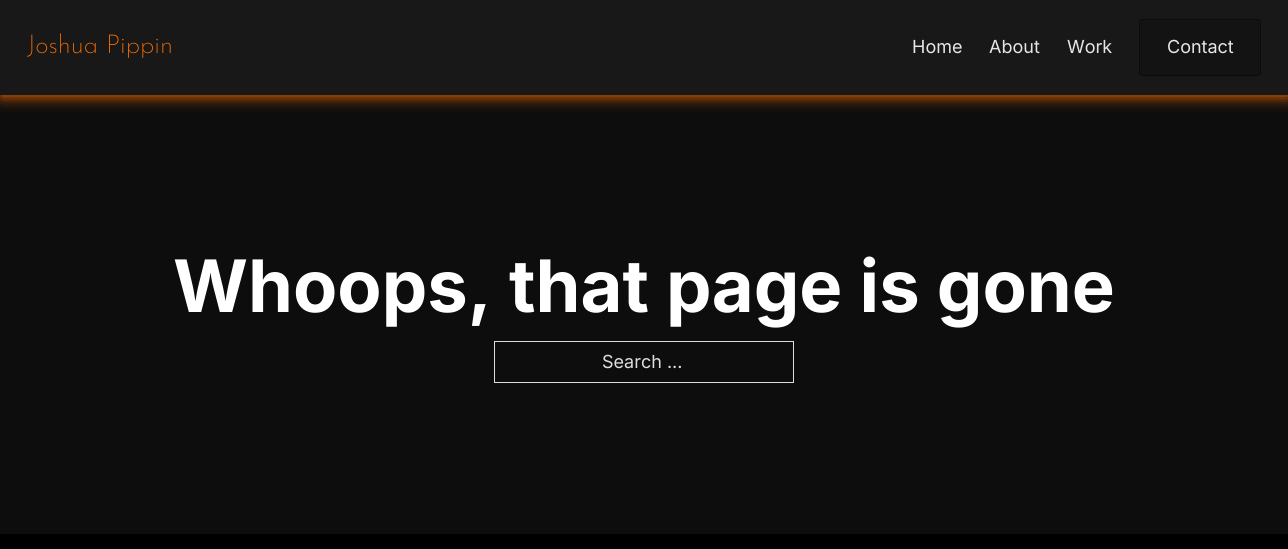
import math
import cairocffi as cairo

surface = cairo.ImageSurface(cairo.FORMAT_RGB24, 1288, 549)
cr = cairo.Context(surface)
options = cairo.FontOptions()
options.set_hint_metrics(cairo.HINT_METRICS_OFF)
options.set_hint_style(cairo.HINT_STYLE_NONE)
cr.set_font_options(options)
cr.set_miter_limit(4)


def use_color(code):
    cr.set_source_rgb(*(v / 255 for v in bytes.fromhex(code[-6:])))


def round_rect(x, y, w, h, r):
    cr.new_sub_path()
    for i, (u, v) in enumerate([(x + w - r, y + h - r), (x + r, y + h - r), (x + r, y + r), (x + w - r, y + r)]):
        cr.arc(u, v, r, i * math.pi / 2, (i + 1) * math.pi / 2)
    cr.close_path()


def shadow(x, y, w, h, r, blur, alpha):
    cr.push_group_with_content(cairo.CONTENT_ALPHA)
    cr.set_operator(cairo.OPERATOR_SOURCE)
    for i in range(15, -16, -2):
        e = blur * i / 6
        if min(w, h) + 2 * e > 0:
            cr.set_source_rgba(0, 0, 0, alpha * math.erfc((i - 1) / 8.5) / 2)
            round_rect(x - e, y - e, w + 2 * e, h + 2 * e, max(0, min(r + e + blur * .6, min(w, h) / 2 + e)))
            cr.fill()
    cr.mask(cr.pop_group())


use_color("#0d0d0d")
cr.paint()
use_color("#ff6f00")
shadow(1, 1, 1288, 95, 0, 7.5, 1)
use_color("#181818")
cr.rectangle(0, 0, 1288, 95)
cr.fill()
cr.select_font_face("Josefin Sans ExtraLight")
cr.set_font_size(26)
use_color("#ff6f00")
cr.move_to(27, 53)
cr.show_text("Joshua Pippin")
cr.select_font_face("Inter")
cr.set_font_size(18)
use_color("#e6e6e6")
cr.move_to(912, 53)
cr.show_text("Home")
cr.move_to(989, 53)
cr.show_text("About")
cr.move_to(1067, 53)
cr.show_text("Work")
use_color("#131313")
round_rect(1139.5, 19.5, 121, 56, 3.5)
cr.fill_preserve()
use_color("#0b0b0b")
cr.set_line_width(1)
cr.stroke()
use_color("#e6e6e6")
cr.move_to(1167, 53)
cr.show_text("Contact")
cr.select_font_face("Inter", cairo.FONT_SLANT_NORMAL, cairo.FONT_WEIGHT_BOLD)
cr.set_font_size(72.3)
use_color("#ffffff")
cr.move_to(173, 312)
cr.show_text("Whoops, that page is gone")
cr.rectangle(494.5, 341.5, 299, 41)
use_color("#dddedf")
cr.stroke()
cr.select_font_face("Inter")
cr.set_font_size(18)
cr.move_to(602, 368)
cr.show_text("Search ...")
use_color("#000000")
cr.rectangle(0, 534, 1288, 15)
cr.fill()
surface.write_to_png("result.png")
